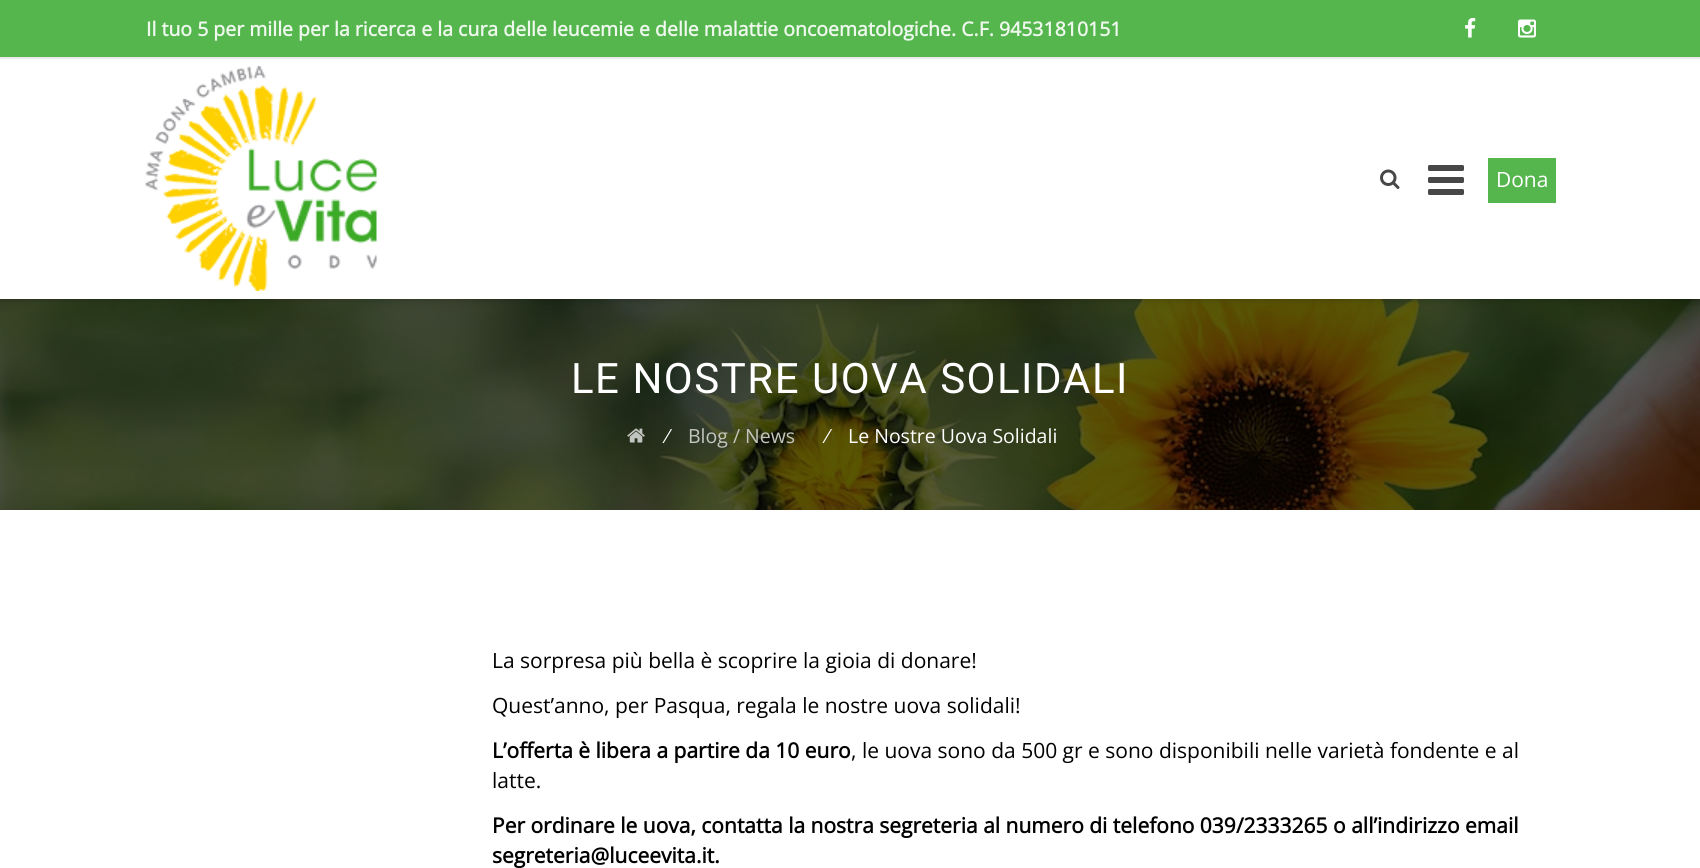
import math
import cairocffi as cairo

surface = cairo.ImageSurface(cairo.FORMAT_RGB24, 1700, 868)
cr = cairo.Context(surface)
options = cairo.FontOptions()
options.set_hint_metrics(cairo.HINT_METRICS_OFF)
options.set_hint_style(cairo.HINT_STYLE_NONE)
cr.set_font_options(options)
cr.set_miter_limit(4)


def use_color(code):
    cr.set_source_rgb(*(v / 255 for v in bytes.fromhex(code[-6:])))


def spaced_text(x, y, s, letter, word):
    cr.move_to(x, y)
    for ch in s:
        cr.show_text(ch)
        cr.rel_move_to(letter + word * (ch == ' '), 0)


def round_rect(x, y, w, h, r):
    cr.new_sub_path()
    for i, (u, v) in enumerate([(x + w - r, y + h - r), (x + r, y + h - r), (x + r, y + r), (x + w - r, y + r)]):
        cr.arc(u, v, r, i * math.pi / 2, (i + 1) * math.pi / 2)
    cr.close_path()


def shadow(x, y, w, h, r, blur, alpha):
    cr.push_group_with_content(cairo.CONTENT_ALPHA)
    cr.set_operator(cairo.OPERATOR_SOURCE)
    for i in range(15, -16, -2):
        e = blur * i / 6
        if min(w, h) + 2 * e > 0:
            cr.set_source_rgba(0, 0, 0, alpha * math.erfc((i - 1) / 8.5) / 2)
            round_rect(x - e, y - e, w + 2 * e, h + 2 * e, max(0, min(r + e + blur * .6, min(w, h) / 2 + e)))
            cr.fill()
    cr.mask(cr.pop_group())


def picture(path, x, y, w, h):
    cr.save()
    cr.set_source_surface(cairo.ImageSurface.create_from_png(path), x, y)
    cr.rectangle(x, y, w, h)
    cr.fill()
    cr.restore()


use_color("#ffffff")
cr.paint()
picture("img6.png", 0, 299, 1700, 211)
use_color("#000000")
shadow(0, 2, 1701, 298, 0, 4, 0.2)
use_color("#55b64e")
cr.rectangle(0, 0, 1700, 57)
cr.fill()
use_color("#eaeaea")
cr.rectangle(0, 57, 1700, 2)
cr.fill()
cr.select_font_face("Open Sans", cairo.FONT_SLANT_NORMAL, cairo.FONT_WEIGHT_BOLD)
cr.set_font_size(19.5)
use_color("#eef8ed")
cr.move_to(146, 36)
cr.show_text("Il tuo 5 per mille per la ricerca e la cura delle leucemie e delle malattie oncoematologiche. C.F. 94531810151")
picture("img1.png", 1465, 18, 11, 20)
picture("img2.png", 1518, 19, 18, 19)
use_color("#ffffff")
cr.rectangle(0, 59, 1700, 240)
cr.fill()
picture("img3.png", 145, 66, 232, 225)
picture("img4.png", 1380, 169, 20, 20)
picture("img5.png", 1428, 165, 36, 30)
use_color("#55b64e")
cr.rectangle(1488, 158, 68, 45)
cr.fill()
cr.select_font_face("Open Sans")
cr.set_font_size(21)
use_color("#ffffff")
cr.move_to(1496, 187)
cr.show_text("Dona")
cr.select_font_face("Roboto")
cr.set_font_size(42)
spaced_text(571, 393, "LE NOSTRE UOVA SOLIDALI", 1.5, 0)
picture("img7.png", 627, 428, 18, 15)
cr.select_font_face("Open Sans")
cr.set_font_size(19.5)
cr.move_to(666, 443)
cr.show_text("⁄")
use_color("#c4c6be")
cr.move_to(688, 443)
cr.show_text("Blog / News")
use_color("#ffffff")
cr.move_to(826, 443)
cr.show_text("⁄")
cr.move_to(848, 443)
cr.show_text("Le Nostre Uova Solidali")
cr.set_font_size(21)
use_color("#000000")
cr.move_to(492, 668)
cr.show_text("La sorpresa più bella è scoprire la gioia di donare!")
cr.move_to(492, 713)
cr.show_text("Quest’anno, per Pasqua, regala le nostre uova solidali!")
cr.select_font_face("Open Sans", cairo.FONT_SLANT_NORMAL, cairo.FONT_WEIGHT_BOLD)
cr.move_to(492, 758)
cr.show_text("L’offerta è libera a partire da 10 euro")
cr.select_font_face("Open Sans")
cr.move_to(851, 758)
cr.show_text(", le uova sono da 500 gr e sono disponibili nelle varietà fondente e al")
cr.move_to(492, 788)
cr.show_text("latte.")
cr.select_font_face("Open Sans", cairo.FONT_SLANT_NORMAL, cairo.FONT_WEIGHT_BOLD)
cr.move_to(492, 833)
cr.show_text("Per ordinare le uova, contatta la nostra segreteria al numero di telefono 039/2333265 o all’indirizzo email")
cr.move_to(492, 863)
cr.show_text("segreteria@luceevita.it.")
surface.write_to_png("result.png")
